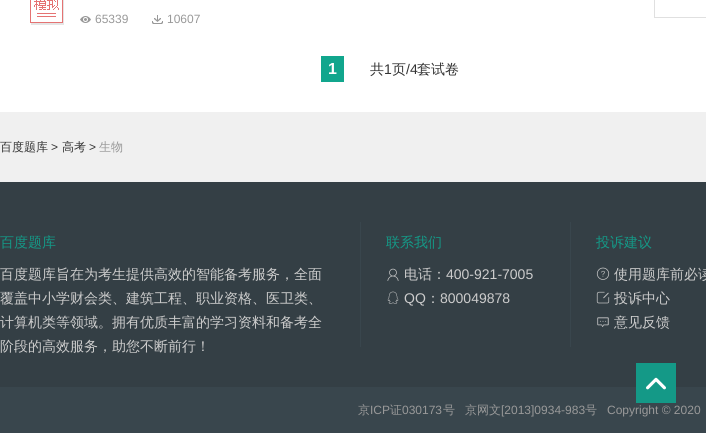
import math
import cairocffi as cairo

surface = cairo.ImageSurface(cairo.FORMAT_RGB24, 706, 433)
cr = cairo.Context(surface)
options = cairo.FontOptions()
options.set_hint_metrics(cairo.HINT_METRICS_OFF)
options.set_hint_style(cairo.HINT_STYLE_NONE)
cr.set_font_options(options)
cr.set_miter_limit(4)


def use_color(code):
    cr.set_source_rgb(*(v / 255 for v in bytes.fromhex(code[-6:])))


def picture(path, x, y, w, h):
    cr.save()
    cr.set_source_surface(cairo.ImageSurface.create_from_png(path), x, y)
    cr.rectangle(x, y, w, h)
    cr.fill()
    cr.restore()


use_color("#f0f0f0")
cr.paint()
use_color("#ffffff")
cr.rectangle(0, 0, 706, 112)
cr.fill()
cr.rectangle(654.5, -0.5, 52, 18)
use_color("#e0e0e0")
cr.set_line_width(1)
cr.stroke()
picture("img1.png", 30, 0, 34, 25)
picture("img2.png", 80, 16, 11, 7)
cr.select_font_face("Liberation Sans")
cr.set_font_size(12)
use_color("#999999")
cr.move_to(95, 23)
cr.show_text("65339")
picture("img3.png", 152, 15, 11, 9)
cr.move_to(167, 23)
cr.show_text("10607")
use_color("#11a68d")
cr.rectangle(321, 56, 23, 26)
cr.fill()
cr.select_font_face("Liberation Sans", cairo.FONT_SLANT_NORMAL, cairo.FONT_WEIGHT_BOLD)
cr.set_font_size(16)
use_color("#ffffff")
cr.move_to(328, 74)
cr.show_text("1")
cr.select_font_face("WenQuanYi Zen Hei Medium")
cr.set_font_size(14)
use_color("#333333")
cr.move_to(370, 74)
cr.show_text("共")
cr.select_font_face("Liberation Sans")
cr.move_to(384, 74)
cr.show_text("1")
cr.select_font_face("WenQuanYi Zen Hei Medium")
cr.move_to(392, 74)
cr.show_text("页")
cr.select_font_face("Liberation Sans")
cr.move_to(406, 74)
cr.show_text("/4")
cr.select_font_face("WenQuanYi Zen Hei Medium")
cr.move_to(417, 74)
cr.show_text("套试卷")
use_color("#343f45")
cr.rectangle(0, 182, 706, 205)
cr.fill()
use_color("#39464d")
cr.rectangle(0, 387, 706, 46)
cr.fill()
use_color("#149987")
cr.rectangle(636, 363, 40, 40)
cr.fill()
picture("img4.png", 646, 377, 20, 13)
cr.set_font_size(12)
use_color("#333333")
cr.move_to(0, 151)
cr.show_text("百度题库")
cr.select_font_face("Liberation Sans")
cr.move_to(51, 151)
cr.show_text(">")
cr.select_font_face("WenQuanYi Zen Hei Medium")
cr.move_to(62, 151)
cr.show_text("高考")
cr.select_font_face("Liberation Sans")
cr.move_to(89, 151)
cr.show_text(">")
cr.select_font_face("WenQuanYi Zen Hei Medium")
use_color("#999999")
cr.move_to(99, 151)
cr.show_text("生物")
use_color("#39464d")
cr.rectangle(360, 222, 1, 125)
cr.fill()
cr.set_font_size(14)
use_color("#149987")
cr.move_to(0, 247)
cr.show_text("百度题库")
use_color("#cccccc")
cr.move_to(0, 279)
cr.show_text("百度题库旨在为考生提供高效的智能备考服务，全面")
cr.move_to(0, 303)
cr.show_text("覆盖中小学财会类、建筑工程、职业资格、医卫类、")
cr.move_to(0, 327)
cr.show_text("计算机类等领域。拥有优质丰富的学习资料和备考全")
cr.move_to(0, 351)
cr.show_text("阶段的高效服务，助您不断前行！")
use_color("#39464d")
cr.rectangle(570, 222, 1, 125)
cr.fill()
use_color("#149987")
cr.move_to(386, 247)
cr.show_text("联系我们")
picture("img5.png", 387, 268, 12, 13)
use_color("#cccccc")
cr.move_to(404, 279)
cr.show_text("电话：")
cr.select_font_face("Liberation Sans")
cr.move_to(446, 279)
cr.show_text("400-921-7005")
picture("img6.png", 387, 291, 12, 13)
cr.move_to(404, 303)
cr.show_text("QQ")
cr.select_font_face("WenQuanYi Zen Hei Medium")
cr.move_to(426, 303)
cr.show_text("：")
cr.select_font_face("Liberation Sans")
cr.move_to(440, 303)
cr.show_text("800049878")
cr.select_font_face("WenQuanYi Zen Hei Medium")
use_color("#149987")
cr.move_to(596, 247)
cr.show_text("投诉建议")
picture("img7.png", 596, 267, 14, 13)
use_color("#cccccc")
cr.move_to(614, 279)
cr.show_text("使用题库前必读")
picture("img8.png", 596, 291, 14, 13)
cr.move_to(614, 303)
cr.show_text("投诉中心")
picture("img9.png", 597, 317, 12, 10)
cr.move_to(614, 327)
cr.show_text("意见反馈")
cr.set_font_size(12)
use_color("#999999")
cr.move_to(358, 414)
cr.show_text("京")
cr.select_font_face("Liberation Sans")
cr.move_to(370, 414)
cr.show_text("ICP")
cr.select_font_face("WenQuanYi Zen Hei Medium")
cr.move_to(390, 414)
cr.show_text("证")
cr.select_font_face("Liberation Sans")
cr.move_to(402, 414)
cr.show_text("030173")
cr.select_font_face("WenQuanYi Zen Hei Medium")
cr.move_to(443, 414)
cr.show_text("号")
cr.move_to(465, 414)
cr.show_text("京网文")
cr.select_font_face("Liberation Sans")
cr.move_to(501, 414)
cr.show_text("[2013]0934-983")
cr.select_font_face("WenQuanYi Zen Hei Medium")
cr.move_to(585, 414)
cr.show_text("号")
cr.select_font_face("Liberation Sans")
cr.move_to(607, 414)
cr.show_text("Copyright © 2020")
surface.write_to_png("result.png")
